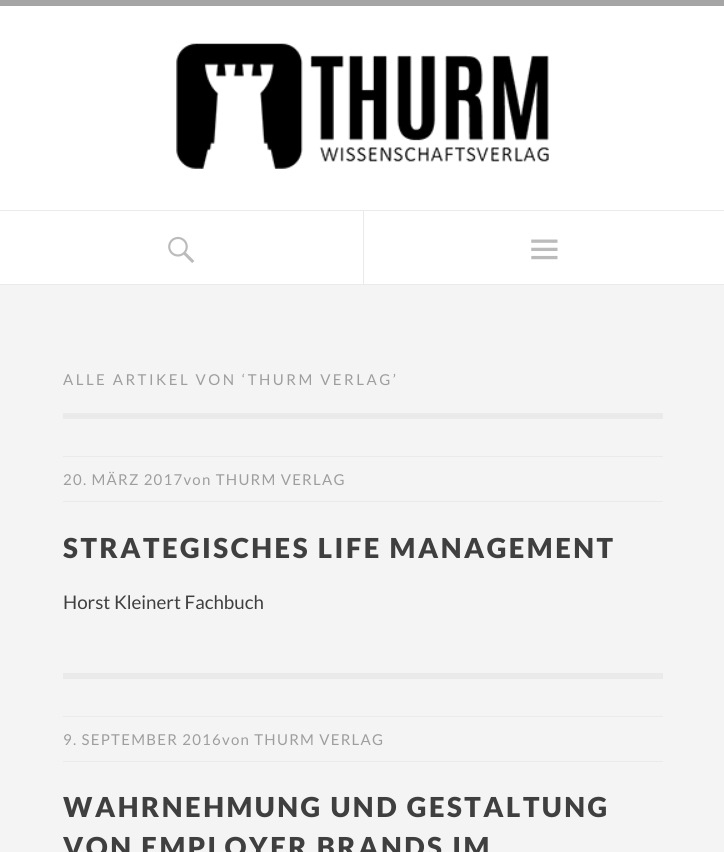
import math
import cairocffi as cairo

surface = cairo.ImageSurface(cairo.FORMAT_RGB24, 724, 852)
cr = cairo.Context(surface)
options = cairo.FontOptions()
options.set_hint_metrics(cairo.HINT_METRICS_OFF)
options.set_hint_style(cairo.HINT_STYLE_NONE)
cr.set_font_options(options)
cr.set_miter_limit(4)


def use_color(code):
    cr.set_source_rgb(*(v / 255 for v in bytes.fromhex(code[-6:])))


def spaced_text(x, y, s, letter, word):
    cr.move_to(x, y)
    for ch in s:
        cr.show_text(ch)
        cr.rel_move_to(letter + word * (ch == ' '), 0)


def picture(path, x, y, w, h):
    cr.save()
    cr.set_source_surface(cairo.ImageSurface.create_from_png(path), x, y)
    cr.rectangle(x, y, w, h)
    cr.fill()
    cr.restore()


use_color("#f4f4f4")
cr.paint()
use_color("#ffffff")
cr.rectangle(0, 6, 724, 278)
cr.fill()
use_color("#a5a5a5")
cr.rectangle(0, 0, 724, 6)
cr.fill()
picture("img1.png", 176, 43, 373, 126)
use_color("#eaeaea")
cr.rectangle(0, 210, 724, 1)
cr.fill()
cr.rectangle(0, 284, 724, 1)
cr.fill()
picture("img2.png", 168, 236, 27, 27)
cr.rectangle(363, 210, 1, 75)
cr.fill()
picture("img3.png", 531, 239, 27, 21)
cr.rectangle(63, 413, 600, 6)
cr.fill()
cr.select_font_face("Lato")
cr.set_font_size(15)
use_color("#9e9e9e")
spaced_text(63, 385, "ALLE ARTIKEL VON ‘THURM VERLAG’", 2.5, 0)
use_color("#eaeaea")
cr.rectangle(63, 456, 600, 1)
cr.fill()
use_color("#9e9e9e")
spaced_text(63, 485, "20. MÄRZ 2017von THURM VERLAG", 1.25, 0)
use_color("#eaeaea")
cr.rectangle(63, 501, 600, 1)
cr.fill()
cr.select_font_face("Lato Black")
cr.set_font_size(27.5)
use_color("#3f3f3f")
spaced_text(63, 558, "STRATEGISCHES LIFE MANAGEMENT", 2.5, 0)
cr.select_font_face("Lato")
cr.set_font_size(18.75)
cr.move_to(63, 609)
cr.show_text("Horst Kleinert Fachbuch")
use_color("#eaeaea")
cr.rectangle(63, 673, 600, 6)
cr.fill()
cr.rectangle(63, 716, 600, 1)
cr.fill()
cr.set_font_size(15)
use_color("#9e9e9e")
spaced_text(63, 745, "9. SEPTEMBER 2016von THURM VERLAG", 1.25, 0)
use_color("#eaeaea")
cr.rectangle(63, 761, 600, 1)
cr.fill()
cr.select_font_face("Lato Black")
cr.set_font_size(27.5)
use_color("#3f3f3f")
spaced_text(63, 817, "WAHRNEHMUNG UND GESTALTUNG", 2.5, 0)
spaced_text(63, 857, "VON EMPLOYER BRANDS IM", 2.5, 0)
surface.write_to_png("result.png")
